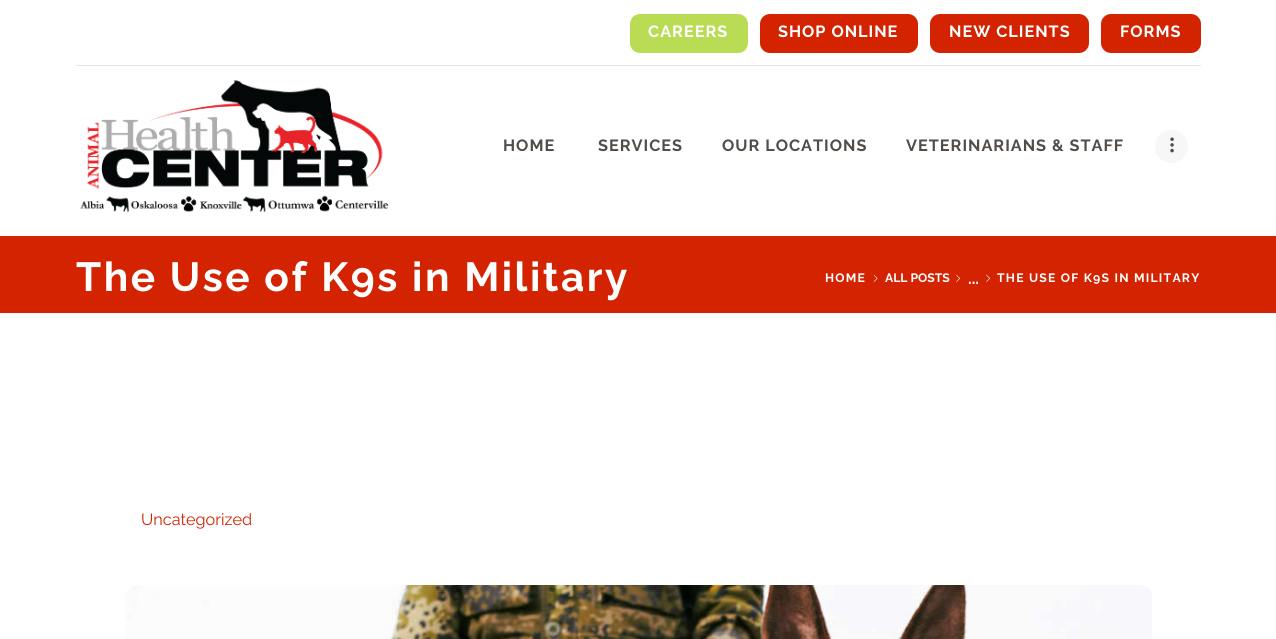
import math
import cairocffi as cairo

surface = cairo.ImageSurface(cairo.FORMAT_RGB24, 1276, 639)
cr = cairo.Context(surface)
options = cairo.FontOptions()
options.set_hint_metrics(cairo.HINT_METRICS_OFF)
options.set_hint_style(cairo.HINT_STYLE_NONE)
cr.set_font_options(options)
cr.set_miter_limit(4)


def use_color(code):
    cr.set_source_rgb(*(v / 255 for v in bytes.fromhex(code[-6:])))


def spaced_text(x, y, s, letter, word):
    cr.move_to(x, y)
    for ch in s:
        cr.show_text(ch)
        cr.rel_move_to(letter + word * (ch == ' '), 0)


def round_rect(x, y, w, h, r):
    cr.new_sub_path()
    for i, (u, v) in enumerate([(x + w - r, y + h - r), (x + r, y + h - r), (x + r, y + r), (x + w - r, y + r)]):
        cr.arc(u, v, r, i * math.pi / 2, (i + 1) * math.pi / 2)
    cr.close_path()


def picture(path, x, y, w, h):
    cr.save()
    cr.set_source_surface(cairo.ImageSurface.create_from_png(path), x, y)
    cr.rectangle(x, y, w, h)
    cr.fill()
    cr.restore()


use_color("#ffffff")
cr.paint()
use_color("#e5e5e5")
cr.rectangle(76, 65, 1125, 1)
cr.fill()
use_color("#badc55")
round_rect(630, 14, 118, 39, 10)
cr.fill()
cr.select_font_face("Raleway", cairo.FONT_SLANT_NORMAL, cairo.FONT_WEIGHT_BOLD)
cr.set_font_size(16.25)
use_color("#ffffff")
spaced_text(648, 37, "CAREERS", 1, 0)
use_color("#d32300")
round_rect(760, 14, 158, 39, 10)
cr.fill()
use_color("#ffffff")
spaced_text(778, 37, "SHOP ONLINE", 1, 0)
use_color("#d32300")
round_rect(930, 14, 159, 39, 10)
cr.fill()
use_color("#ffffff")
spaced_text(949, 37, "NEW CLIENTS", 1, 0)
use_color("#d32300")
round_rect(1101, 14, 100, 39, 10)
cr.fill()
use_color("#ffffff")
spaced_text(1120, 37, "FORMS", 1, 0)
picture("img1.png", 80, 80, 309, 133)
use_color("#524d48")
spaced_text(503, 151, "HOME", 1, 0)
spaced_text(598, 151, "SERVICES", 1, 0)
spaced_text(722, 151, "OUR LOCATIONS", 1, 0)
spaced_text(906, 151, "VETERINARIANS & STAFF", 1, 0)
use_color("#f7f7f7")
cr.new_path()
cr.arc(1171.5, 146.5, 16.5, 0, 2 * math.pi)
cr.fill()
picture("img2.png", 1170, 137, 4, 16)
use_color("#d32300")
cr.rectangle(0, 236, 1276, 77)
cr.fill()
cr.set_font_size(40.6)
use_color("#ffffff")
spaced_text(76, 291, "The Use of K9s in Military", 2.5, 0)
cr.set_font_size(12.2)
spaced_text(825, 282, "HOME", 1.25, 0)
picture("img3.png", 873, 275, 5, 7)
cr.move_to(885, 282)
cr.show_text("ALL POSTS")
picture("img4.png", 956, 274, 4, 8)
picture("img4.png", 986, 274, 4, 8)
spaced_text(997, 282, "THE USE OF K9S IN MILITARY", 1.25, 0)
cr.set_font_size(16.25)
cr.move_to(968, 284)
cr.show_text("...")
cr.select_font_face("Raleway")
use_color("#d32300")
cr.move_to(141, 525)
cr.show_text("Uncategorized")
picture("img5.png", 125, 585, 1027, 54)
surface.write_to_png("result.png")
